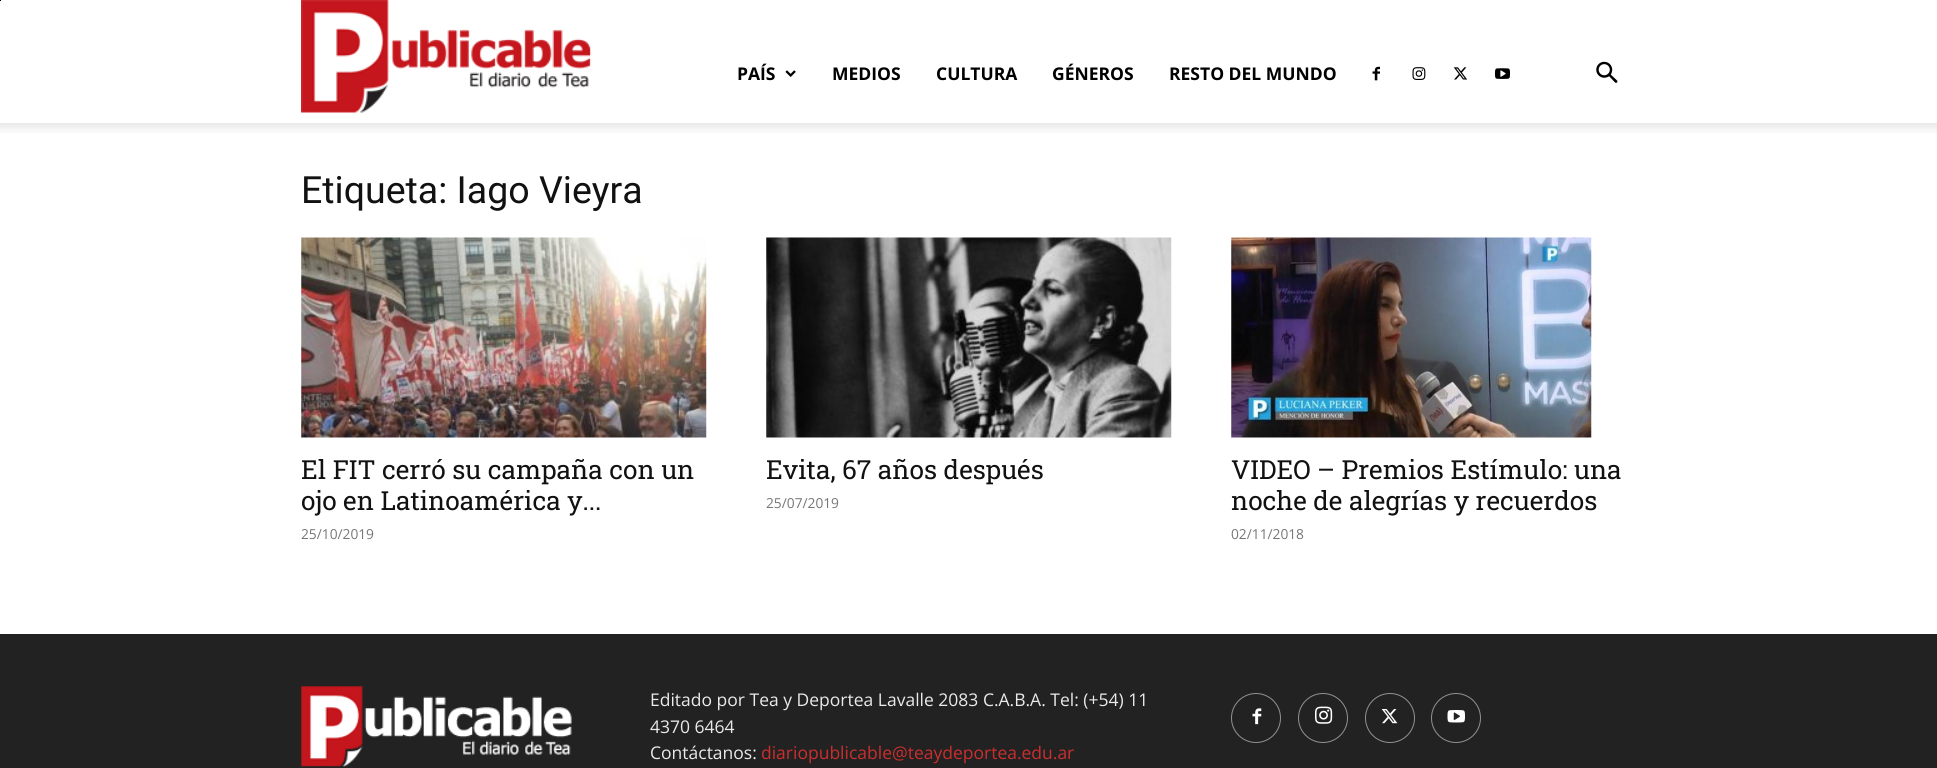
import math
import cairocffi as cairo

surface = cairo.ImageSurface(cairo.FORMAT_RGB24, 1937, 768)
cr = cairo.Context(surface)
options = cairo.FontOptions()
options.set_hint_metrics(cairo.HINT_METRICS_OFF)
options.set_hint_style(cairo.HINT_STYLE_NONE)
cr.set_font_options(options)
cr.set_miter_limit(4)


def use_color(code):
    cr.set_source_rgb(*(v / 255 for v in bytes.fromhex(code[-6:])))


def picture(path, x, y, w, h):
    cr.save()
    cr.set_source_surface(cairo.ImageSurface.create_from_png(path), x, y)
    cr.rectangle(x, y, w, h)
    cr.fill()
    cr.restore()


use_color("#ffffff")
cr.paint()
use_color("#000000")
cr.rectangle(0, 0, 1, 1)
cr.fill()
picture("img1.png", 301, 0, 291, 113)
cr.select_font_face("Open Sans", cairo.FONT_SLANT_NORMAL, cairo.FONT_WEIGHT_BOLD)
cr.set_font_size(17.5)
cr.move_to(737, 80)
cr.show_text("PAÍS")
picture("img2.png", 785, 70, 11, 7)
cr.move_to(832, 80)
cr.show_text("MEDIOS")
cr.move_to(936, 80)
cr.show_text("CULTURA")
cr.move_to(1052, 80)
cr.show_text("GÉNEROS")
cr.move_to(1169, 80)
cr.show_text("RESTO DEL MUNDO")
picture("img3.png", 1372, 66, 8, 15)
picture("img4.png", 1412, 67, 14, 13)
picture("img5.png", 1453, 67, 15, 13)
picture("img6.png", 1495, 68, 15, 11)
picture("img7.png", 1596, 61, 22, 22)
picture("img8.png", 0, 123, 1937, 10)
cr.select_font_face("Roboto")
cr.set_font_size(37.5)
use_color("#111111")
cr.move_to(301, 203)
cr.show_text("Etiqueta: Iago Vieyra")
picture("img9.png", 301, 237, 406, 201)
cr.select_font_face("Roboto Slab")
cr.set_font_size(26.25)
cr.move_to(301, 479)
cr.show_text("El FIT cerró su campaña con un")
cr.move_to(301, 510)
cr.show_text("ojo en Latinoamérica y...")
cr.select_font_face("Open Sans")
cr.set_font_size(13.75)
use_color("#767676")
cr.move_to(301, 539)
cr.show_text("25/10/2019")
picture("img10.png", 766, 237, 406, 201)
cr.select_font_face("Roboto Slab")
cr.set_font_size(26.25)
use_color("#111111")
cr.move_to(766, 479)
cr.show_text("Evita, 67 años después")
cr.select_font_face("Open Sans")
cr.set_font_size(13.75)
use_color("#767676")
cr.move_to(766, 508)
cr.show_text("25/07/2019")
picture("img11.png", 1231, 237, 361, 201)
cr.select_font_face("Roboto Slab")
cr.set_font_size(26.25)
use_color("#111111")
cr.move_to(1231, 479)
cr.show_text("VIDEO – Premios Estímulo: una")
cr.move_to(1231, 510)
cr.show_text("noche de alegrías y recuerdos")
cr.select_font_face("Open Sans")
cr.set_font_size(13.75)
use_color("#767676")
cr.move_to(1231, 539)
cr.show_text("02/11/2018")
use_color("#222222")
cr.rectangle(0, 634, 1937, 134)
cr.fill()
picture("img12.png", 301, 686, 271, 81)
cr.set_font_size(17.5)
use_color("#eaeaea")
cr.move_to(650, 706)
cr.show_text("Editado por Tea y Deportea Lavalle 2083 C.A.B.A. Tel: (+54) 11")
cr.move_to(650, 733)
cr.show_text("4370 6464")
cr.move_to(650, 759)
cr.show_text("Contáctanos:")
use_color("#cc2e2e")
cr.move_to(761, 759)
cr.show_text("diariopublicable@teaydeportea.edu.ar")
picture("img13.png", 1252, 708, 10, 17)
cr.arc(1256, 718, 24.5, 0, 2 * math.pi)
use_color("#919191")
cr.set_line_width(1)
cr.stroke()
picture("img14.png", 1315, 706, 18, 18)
cr.arc(1323, 718, 24.5, 0, 2 * math.pi)
cr.stroke()
picture("img15.png", 1381, 709, 17, 15)
cr.arc(1390, 718, 24.5, 0, 2 * math.pi)
cr.stroke()
picture("img16.png", 1447, 710, 18, 13)
cr.arc(1456, 718, 24.5, 0, 2 * math.pi)
cr.stroke()
surface.write_to_png("result.png")
